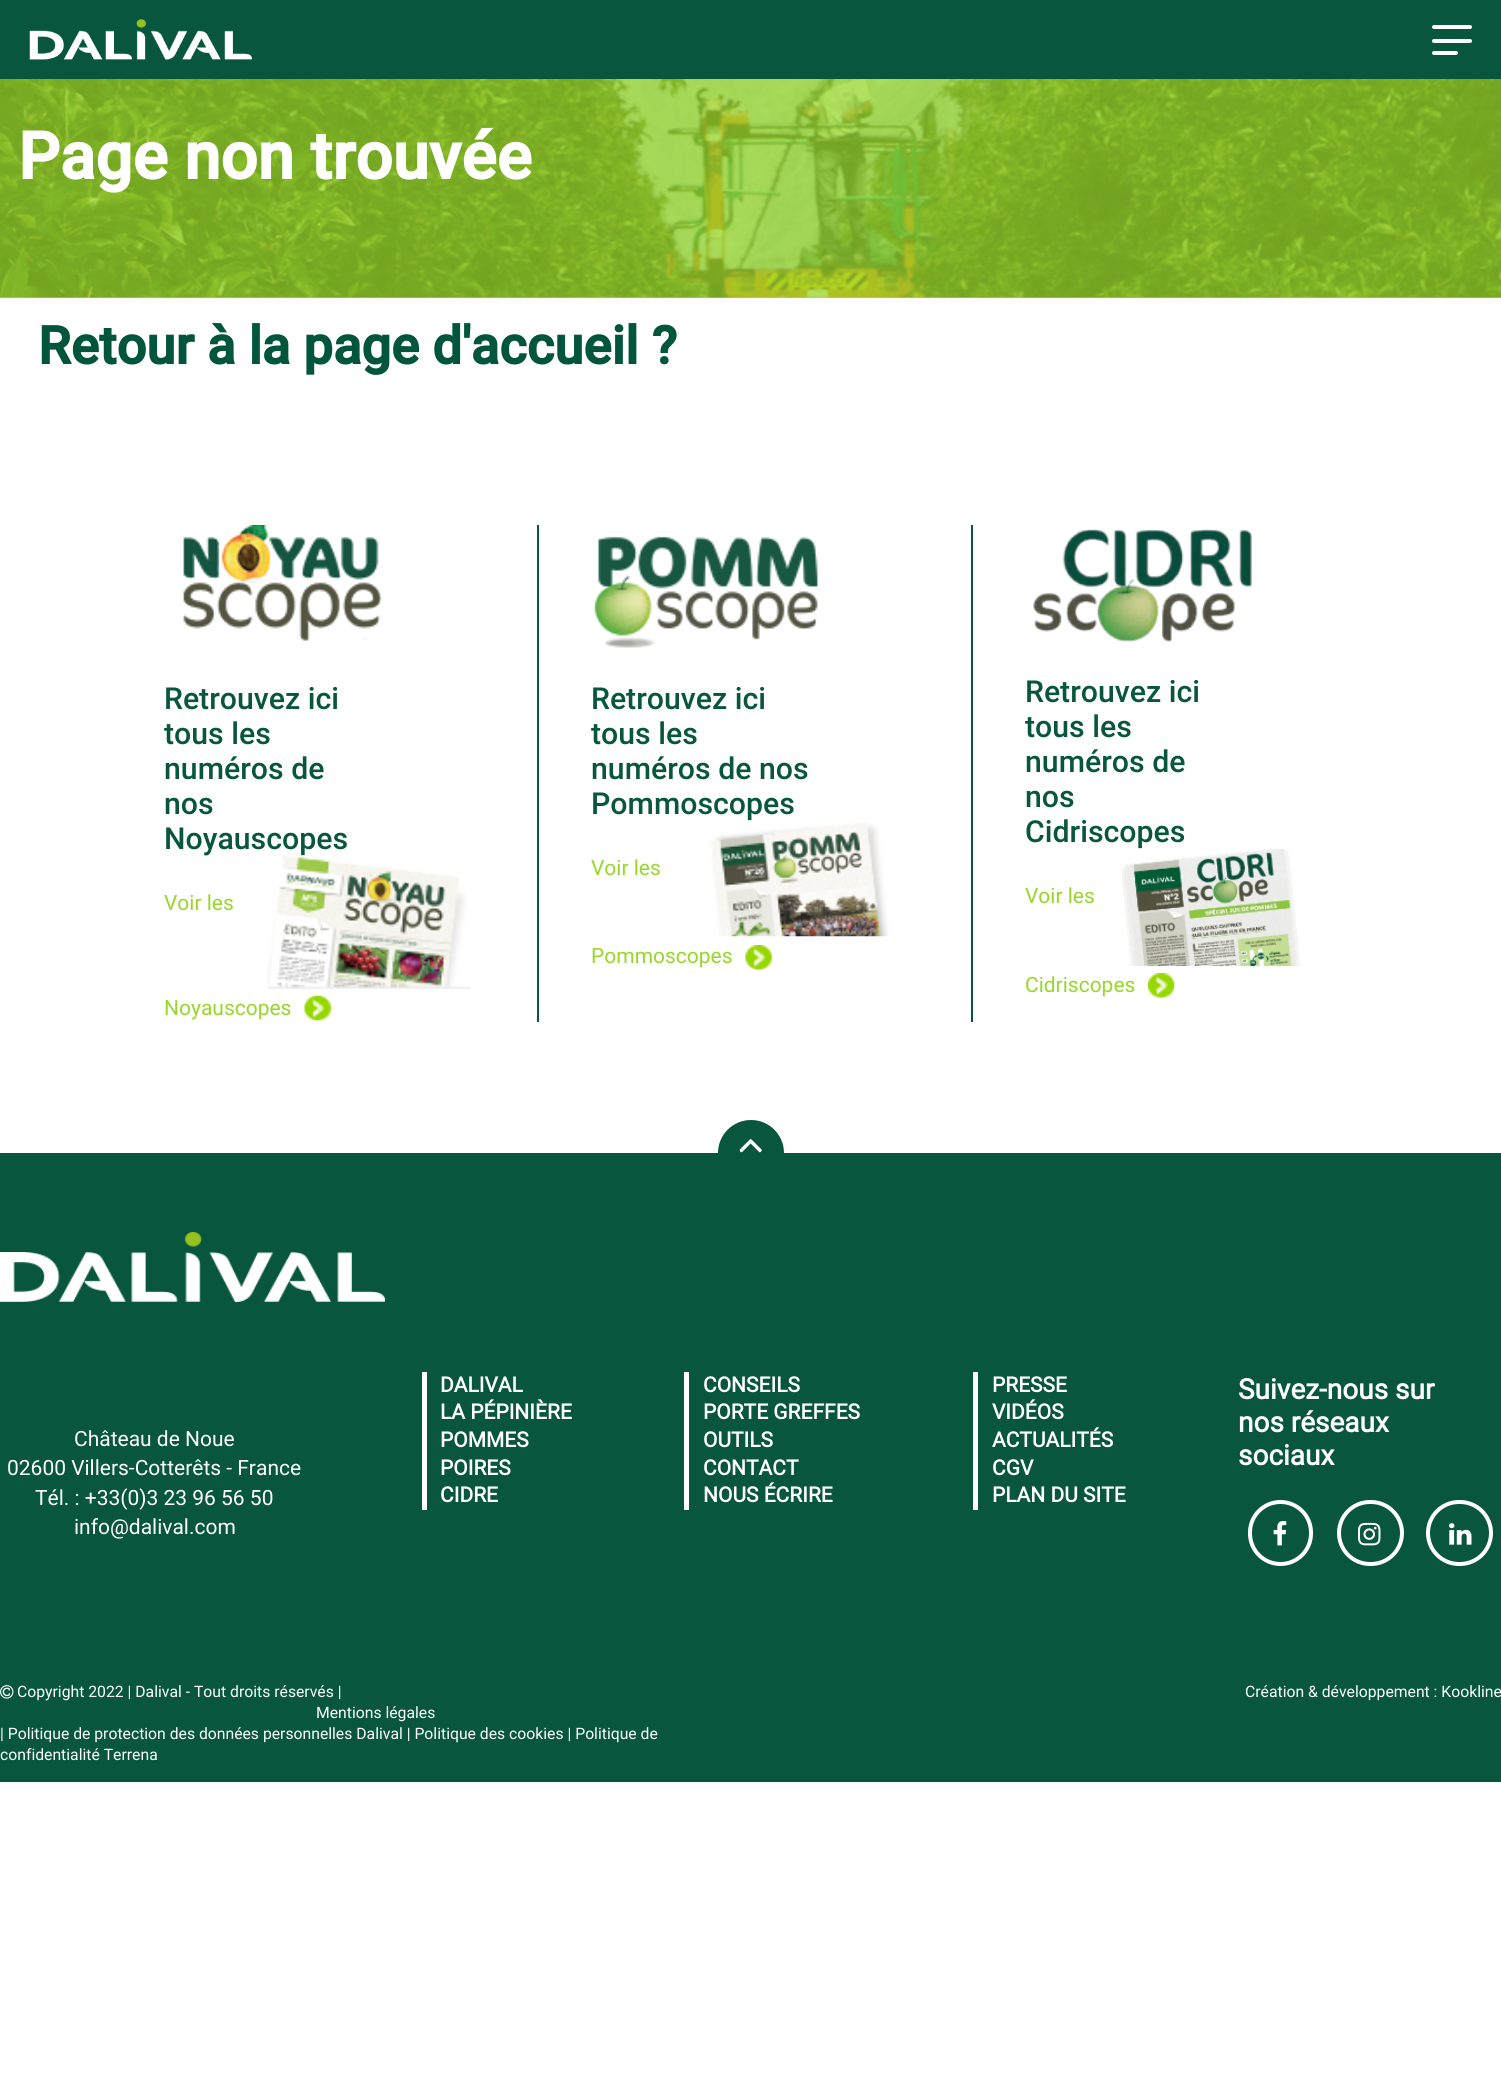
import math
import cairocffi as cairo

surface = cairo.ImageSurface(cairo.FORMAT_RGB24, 1501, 2097)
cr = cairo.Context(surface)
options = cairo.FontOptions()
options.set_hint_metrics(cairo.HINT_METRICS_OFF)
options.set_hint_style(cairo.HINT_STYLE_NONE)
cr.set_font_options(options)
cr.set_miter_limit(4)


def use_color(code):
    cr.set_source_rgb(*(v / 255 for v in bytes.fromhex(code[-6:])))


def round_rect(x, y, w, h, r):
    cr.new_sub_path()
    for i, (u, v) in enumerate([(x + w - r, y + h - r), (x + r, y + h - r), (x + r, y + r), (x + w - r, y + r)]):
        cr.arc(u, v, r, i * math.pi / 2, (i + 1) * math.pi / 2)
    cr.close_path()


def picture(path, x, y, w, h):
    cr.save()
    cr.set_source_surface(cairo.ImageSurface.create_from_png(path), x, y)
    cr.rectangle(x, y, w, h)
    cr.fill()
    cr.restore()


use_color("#ffffff")
cr.paint()
use_color("#b1e15f")
cr.rectangle(0, 297, 1501, 1)
cr.fill()
use_color("#07563d")
cr.rectangle(0, 0, 1501, 79)
cr.fill()
picture("img1.png", 29, 19, 223, 41)
use_color("#ffffff")
round_rect(1432, 25, 40, 4, 2)
cr.fill()
round_rect(1432, 39, 40, 4, 2)
cr.fill()
round_rect(1432, 51, 26, 4, 2)
cr.fill()
picture("img2.png", 0, 79, 1501, 219)
cr.select_font_face("Roboto", cairo.FONT_SLANT_NORMAL, cairo.FONT_WEIGHT_BOLD)
cr.set_font_size(65.5)
cr.move_to(18, 179)
cr.show_text("Page non trouvée")
cr.set_font_size(52.5)
use_color("#00553c")
cr.move_to(38, 364)
cr.show_text("Retour à la page d'accueil ?")
picture("img3.png", 183, 525, 199, 116)
cr.select_font_face("Roboto Medium")
cr.set_font_size(30.25)
use_color("#07563d")
cr.move_to(164, 709)
cr.show_text("Retrouvez ici")
cr.move_to(164, 744)
cr.show_text("tous les")
cr.move_to(164, 779)
cr.show_text("numéros de")
cr.move_to(164, 814)
cr.show_text("nos")
picture("img4.png", 267, 855, 204, 134)
cr.move_to(164, 849)
cr.show_text("Noyauscopes")
cr.select_font_face("Roboto")
cr.set_font_size(21)
use_color("#97d72a")
cr.move_to(164, 910)
cr.show_text("Voir les")
cr.move_to(164, 1015)
cr.show_text("Noyauscopes")
picture("img5.png", 304, 995, 27, 26)
use_color("#07563d")
cr.rectangle(971, 525, 2, 497)
cr.fill()
cr.rectangle(537, 525, 2, 497)
cr.fill()
picture("img6.png", 594, 536, 224, 112)
cr.select_font_face("Roboto Medium")
cr.set_font_size(30.25)
cr.move_to(591, 709)
cr.show_text("Retrouvez ici")
cr.move_to(591, 744)
cr.show_text("tous les")
cr.move_to(591, 779)
cr.show_text("numéros de nos")
cr.move_to(591, 814)
cr.show_text("Pommoscopes")
picture("img7.png", 710, 822, 179, 115)
cr.select_font_face("Roboto")
cr.set_font_size(21)
use_color("#97d72a")
cr.move_to(591, 875)
cr.show_text("Voir les")
cr.move_to(591, 963)
cr.show_text("Pommoscopes")
picture("img8.png", 745, 945, 27, 25)
picture("img9.png", 1033, 529, 219, 113)
cr.select_font_face("Roboto Medium")
cr.set_font_size(30.25)
use_color("#07563d")
cr.move_to(1025, 702)
cr.show_text("Retrouvez ici")
cr.move_to(1025, 737)
cr.show_text("tous les")
cr.move_to(1025, 772)
cr.show_text("numéros de")
cr.move_to(1025, 807)
cr.show_text("nos")
picture("img10.png", 1122, 848, 178, 118)
cr.move_to(1025, 842)
cr.show_text("Cidriscopes")
cr.select_font_face("Roboto")
cr.set_font_size(21)
use_color("#97d72a")
cr.move_to(1025, 903)
cr.show_text("Voir les")
cr.move_to(1025, 992)
cr.show_text("Cidriscopes")
picture("img11.png", 1148, 973, 27, 25)
use_color("#07563d")
cr.rectangle(0, 1153, 1501, 629)
cr.fill()
round_rect(718, 1120, 66, 67, 33)
cr.fill()
picture("img12.png", 739, 1139, 23, 14)
picture("img13.png", 0, 1232, 385, 70)
use_color("#ffffff")
cr.move_to(74, 1446)
cr.show_text("Château de Noue")
cr.move_to(7, 1475)
cr.show_text("02600 Villers-Cotterêts - France")
cr.move_to(35, 1505)
cr.show_text("Tél. : +33(0)3 23 96 56 50")
cr.move_to(74, 1534)
cr.show_text("info@dalival.com")
cr.rectangle(422, 1372, 5, 138)
cr.fill()
cr.select_font_face("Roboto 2", cairo.FONT_SLANT_NORMAL, cairo.FONT_WEIGHT_BOLD)
cr.move_to(440, 1392)
cr.show_text("DALIVAL")
cr.move_to(440, 1419)
cr.show_text("LA PÉPINIÈRE")
cr.move_to(440, 1447)
cr.show_text("POMMES")
cr.move_to(440, 1475)
cr.show_text("POIRES")
cr.move_to(440, 1502)
cr.show_text("CIDRE")
cr.rectangle(684, 1372, 5, 138)
cr.fill()
cr.move_to(703, 1392)
cr.show_text("CONSEILS")
cr.move_to(703, 1419)
cr.show_text("PORTE GREFFES")
cr.move_to(703, 1447)
cr.show_text("OUTILS")
cr.move_to(703, 1475)
cr.show_text("CONTACT")
cr.move_to(703, 1502)
cr.show_text("NOUS ÉCRIRE")
cr.rectangle(973, 1372, 5, 138)
cr.fill()
cr.move_to(992, 1392)
cr.show_text("PRESSE")
cr.move_to(992, 1419)
cr.show_text("VIDÉOS")
cr.move_to(992, 1447)
cr.show_text("ACTUALITÉS")
cr.move_to(992, 1475)
cr.show_text("CGV")
cr.move_to(992, 1502)
cr.show_text("PLAN DU SITE")
cr.set_font_size(28)
cr.move_to(1238, 1399)
cr.show_text("Suivez-nous sur")
cr.move_to(1238, 1432)
cr.show_text("nos réseaux")
cr.move_to(1238, 1465)
cr.show_text("sociaux")
round_rect(1250, 1502, 61, 62, 30.5)
cr.set_line_width(4)
cr.stroke()
picture("img14.png", 1273, 1521, 14, 25)
round_rect(1339, 1502, 63, 62, 31)
cr.stroke()
picture("img15.png", 1358, 1522, 23, 24)
round_rect(1428, 1502, 63, 62, 31)
cr.stroke()
picture("img16.png", 1449, 1523, 23, 22)
picture("img17.png", 0, 1685, 14, 14)
cr.select_font_face("Roboto")
cr.set_font_size(15.75)
cr.move_to(17, 1697)
cr.show_text("Copyright 2022 | Dalival - Tout droits réservés |")
cr.move_to(316, 1718)
cr.show_text("Mentions légales")
cr.move_to(0, 1739)
cr.show_text("| Politique de protection des données personnelles Dalival | Politique des cookies | Politique de")
cr.move_to(0, 1760)
cr.show_text("confidentialité Terrena")
cr.move_to(1245, 1697)
cr.show_text("Création & développement : Kookline")
surface.write_to_png("result.png")
